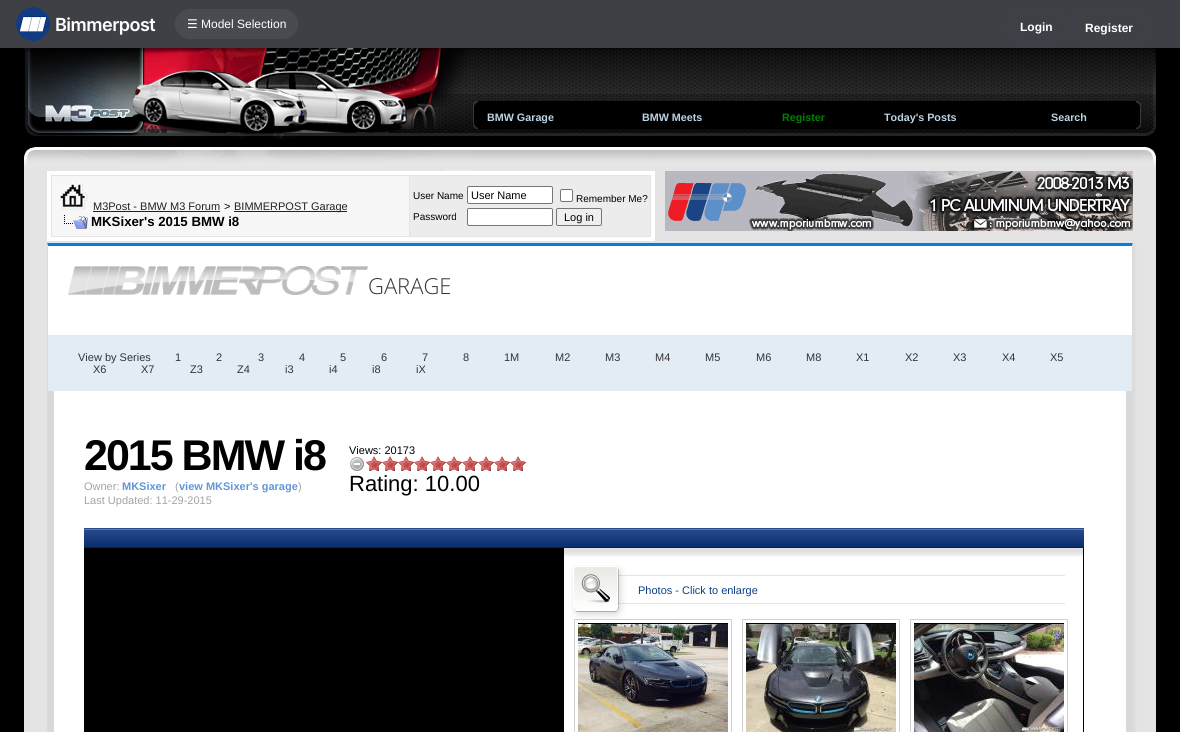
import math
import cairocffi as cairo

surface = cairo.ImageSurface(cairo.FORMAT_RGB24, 1180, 732)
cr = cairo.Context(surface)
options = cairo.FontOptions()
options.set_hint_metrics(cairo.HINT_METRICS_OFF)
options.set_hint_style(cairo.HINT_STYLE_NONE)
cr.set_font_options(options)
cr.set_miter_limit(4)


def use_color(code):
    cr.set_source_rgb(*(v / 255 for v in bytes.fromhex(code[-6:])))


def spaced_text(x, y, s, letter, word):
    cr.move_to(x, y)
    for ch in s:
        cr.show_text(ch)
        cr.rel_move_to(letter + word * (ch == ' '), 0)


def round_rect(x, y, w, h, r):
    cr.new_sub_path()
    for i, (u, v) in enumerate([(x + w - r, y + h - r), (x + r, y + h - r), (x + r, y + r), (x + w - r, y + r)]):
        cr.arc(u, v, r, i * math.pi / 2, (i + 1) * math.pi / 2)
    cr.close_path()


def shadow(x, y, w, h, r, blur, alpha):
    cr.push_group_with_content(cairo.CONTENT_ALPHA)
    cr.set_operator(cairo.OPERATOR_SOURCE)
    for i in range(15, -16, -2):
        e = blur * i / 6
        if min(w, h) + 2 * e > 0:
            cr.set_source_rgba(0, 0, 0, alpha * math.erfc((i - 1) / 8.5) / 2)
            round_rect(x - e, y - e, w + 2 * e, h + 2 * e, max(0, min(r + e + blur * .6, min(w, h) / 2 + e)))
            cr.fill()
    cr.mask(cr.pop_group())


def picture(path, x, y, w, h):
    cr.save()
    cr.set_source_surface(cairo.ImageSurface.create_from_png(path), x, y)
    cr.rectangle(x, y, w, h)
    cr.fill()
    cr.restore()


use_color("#000000")
cr.paint()
use_color("#3e4046")
cr.rectangle(0, 0, 1180, 48)
cr.fill()
picture("img1.png", 16, 7, 34, 34)
cr.select_font_face("Inter SemiBold")
cr.set_font_size(18)
use_color("#ffffff")
spaced_text(55, 31, "Bimmerpost", -0.5, 0)
use_color("#494b51")
round_rect(175, 9, 123, 30, 15)
cr.fill()
cr.select_font_face("DejaVu Sans")
cr.set_font_size(12)
use_color("#ffffff")
cr.move_to(187, 28)
cr.show_text("☰")
cr.select_font_face("Liberation Sans")
cr.move_to(201, 28)
cr.show_text("Model Selection")
round_rect(1007.5, 13.5, 58, 27, 13.5)
use_color("#3c414f")
cr.set_line_width(1)
cr.stroke()
cr.select_font_face("Liberation Sans", cairo.FONT_SLANT_NORMAL, cairo.FONT_WEIGHT_BOLD)
use_color("#ffffff")
cr.move_to(1020, 31)
cr.show_text("Login")
round_rect(1072.5, 13.5, 73, 28, 13.5)
use_color("#3c414f")
cr.stroke()
use_color("#ffffff")
cr.move_to(1085, 32)
cr.show_text("Register")
picture("img2.png", 24, 48, 449, 123)
picture("img3.png", 473, 48, 668, 123)
picture("img4.png", 473, 101, 5, 28)
use_color("#000000")
cr.rectangle(478, 101, 658, 28)
cr.fill()
cr.set_font_size(10.75)
use_color("#bcd4e4")
cr.move_to(487, 121)
cr.show_text("BMW Garage")
cr.move_to(642, 121)
cr.show_text("BMW Meets")
use_color("#008000")
cr.move_to(782, 121)
cr.show_text("Register")
use_color("#bcd4e4")
cr.move_to(884, 121)
cr.show_text("Today's Posts")
cr.move_to(1051, 121)
cr.show_text("Search")
picture("img5.png", 1136, 101, 5, 28)
picture("img6.png", 1141, 48, 15, 123)
use_color("#e4e4e4")
cr.rectangle(24, 171, 1132, 561)
cr.fill()
cr.rectangle(49, 173, 604, 66)
use_color("#ffffff")
cr.set_line_width(4)
cr.stroke()
use_color("#f7f7f7")
cr.rectangle(52, 176, 357, 60)
cr.fill()
picture("img7.png", 59, 183, 29, 27)
cr.select_font_face("Liberation Sans")
cr.set_font_size(11)
use_color("#222222")
cr.move_to(93, 210)
cr.show_text("M3Post - BMW M3 Forum")
cr.rectangle(93, 211, 127, 1)
cr.fill()
use_color("#000000")
cr.move_to(224, 210)
cr.show_text(">")
use_color("#222222")
cr.rectangle(234, 211, 113, 1)
cr.fill()
cr.move_to(234, 210)
cr.show_text("BIMMERPOST Garage")
picture("img8.png", 64, 215, 24, 14)
cr.select_font_face("Liberation Sans", cairo.FONT_SLANT_NORMAL, cairo.FONT_WEIGHT_BOLD)
cr.set_font_size(13.25)
use_color("#000000")
cr.move_to(91, 226)
cr.show_text("MKSixer's 2015 BMW i8")
use_color("#ececec")
cr.rectangle(410, 176, 240, 60)
cr.fill()
cr.select_font_face("Liberation Sans")
cr.set_font_size(10)
use_color("#000000")
cr.move_to(413, 199)
cr.show_text("User Name")
use_color("#ffffff")
round_rect(467.5, 186.5, 85, 17, 1.5)
cr.fill_preserve()
use_color("#767676")
cr.set_line_width(1)
cr.stroke()
cr.set_font_size(11)
use_color("#000000")
cr.move_to(471, 199)
cr.show_text("User Name")
use_color("#ffffff")
round_rect(560.5, 189.5, 12, 12, 1.5)
cr.fill_preserve()
use_color("#767676")
cr.stroke()
cr.set_font_size(10)
use_color("#000000")
cr.move_to(576, 202)
cr.show_text("Remember Me?")
cr.move_to(413, 220)
cr.show_text("Password")
use_color("#ffffff")
round_rect(467.5, 208.5, 85, 17, 1.5)
cr.fill_preserve()
use_color("#767676")
cr.stroke()
use_color("#efefef")
round_rect(556.5, 208.5, 45, 17, 1.5)
cr.fill_preserve()
use_color("#767676")
cr.stroke()
cr.set_font_size(11)
use_color("#000000")
cr.move_to(564, 221)
cr.show_text("Log in")
picture("img9.png", 665, 171, 468, 60)
use_color("#000000")
shadow(49, 245, 1086, 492, 0, 1.5, 0.05)
use_color("#ffffff")
cr.rectangle(48, 246, 1084, 486)
cr.fill()
use_color("#007fe1")
cr.new_path()
cr.move_to(47, 243)
cr.line_to(1133, 243)
cr.line_to(1132, 246)
cr.line_to(48, 246)
cr.close_path()
cr.fill()
use_color("#dbdbdb")
cr.new_path()
cr.move_to(1133, 243)
cr.line_to(1133, 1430)
cr.line_to(1132, 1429)
cr.line_to(1132, 246)
cr.close_path()
cr.fill()
cr.new_path()
cr.move_to(47, 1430)
cr.line_to(47, 243)
cr.line_to(48, 246)
cr.line_to(48, 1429)
cr.close_path()
cr.fill()
picture("img10.png", 68, 266, 300, 29)
cr.select_font_face("Open Sans Light")
cr.set_font_size(22)
use_color("#333333")
cr.move_to(368, 294)
cr.show_text("GARAGE")
use_color("#e2ecf5")
cr.rectangle(48, 335, 1084, 56)
cr.fill()
cr.select_font_face("Liberation Sans")
cr.set_font_size(11)
use_color("#333333")
cr.move_to(78, 361)
cr.show_text("View by Series")
cr.move_to(175, 361)
cr.show_text("1")
cr.move_to(216, 361)
cr.show_text("2")
cr.move_to(258, 361)
cr.show_text("3")
cr.move_to(299, 361)
cr.show_text("4")
cr.move_to(340, 361)
cr.show_text("5")
cr.move_to(381, 361)
cr.show_text("6")
cr.move_to(422, 361)
cr.show_text("7")
cr.move_to(463, 361)
cr.show_text("8")
cr.move_to(504, 361)
cr.show_text("1M")
cr.move_to(555, 361)
cr.show_text("M2")
cr.move_to(605, 361)
cr.show_text("M3")
cr.move_to(655, 361)
cr.show_text("M4")
cr.move_to(705, 361)
cr.show_text("M5")
cr.move_to(756, 361)
cr.show_text("M6")
cr.move_to(806, 361)
cr.show_text("M8")
cr.move_to(856, 361)
cr.show_text("X1")
cr.move_to(905, 361)
cr.show_text("X2")
cr.move_to(953, 361)
cr.show_text("X3")
cr.move_to(1002, 361)
cr.show_text("X4")
cr.move_to(1050, 361)
cr.show_text("X5")
cr.move_to(93, 373)
cr.show_text("X6")
cr.move_to(141, 373)
cr.show_text("X7")
cr.move_to(190, 373)
cr.show_text("Z3")
cr.move_to(237, 373)
cr.show_text("Z4")
cr.move_to(285, 373)
cr.show_text("i3")
cr.move_to(329, 373)
cr.show_text("i4")
cr.move_to(372, 373)
cr.show_text("i8")
cr.move_to(416, 373)
cr.show_text("iX")
use_color("#d8d8d8")
cr.rectangle(1126, 391, 6, 341)
cr.fill()
cr.rectangle(48, 391, 6, 341)
cr.fill()
cr.select_font_face("Liberation Sans", cairo.FONT_SLANT_NORMAL, cairo.FONT_WEIGHT_BOLD)
cr.set_font_size(43)
use_color("#000000")
spaced_text(84, 470, "2015 BMW i8", -2, 0)
cr.select_font_face("Liberation Sans")
cr.set_font_size(11)
use_color("#a3a3a3")
cr.move_to(84, 490)
cr.show_text("Owner:")
cr.select_font_face("Liberation Sans", cairo.FONT_SLANT_NORMAL, cairo.FONT_WEIGHT_BOLD)
use_color("#6197d5")
cr.move_to(122, 490)
cr.show_text("MKSixer")
cr.select_font_face("Liberation Sans")
use_color("#a3a3a3")
cr.move_to(175, 490)
cr.show_text("(")
cr.select_font_face("Liberation Sans", cairo.FONT_SLANT_NORMAL, cairo.FONT_WEIGHT_BOLD)
use_color("#6197d5")
cr.move_to(179, 490)
cr.show_text("view MKSixer's garage")
cr.select_font_face("Liberation Sans")
use_color("#a3a3a3")
cr.move_to(298, 490)
cr.show_text(")")
cr.move_to(84, 504)
cr.show_text("Last Updated: 11-29-2015")
use_color("#000000")
cr.move_to(349, 454)
cr.show_text("Views: 20173")
picture("img11.png", 350, 457, 14, 14)
picture("img12.png", 366, 456, 8, 15)
picture("img13.png", 374, 456, 8, 15)
picture("img12.png", 382, 456, 8, 15)
picture("img13.png", 390, 456, 8, 15)
picture("img12.png", 398, 456, 8, 15)
picture("img13.png", 406, 456, 8, 15)
picture("img12.png", 414, 456, 8, 15)
picture("img13.png", 422, 456, 8, 15)
picture("img12.png", 430, 456, 8, 15)
picture("img13.png", 438, 456, 8, 15)
picture("img12.png", 446, 456, 8, 15)
picture("img13.png", 454, 456, 8, 15)
picture("img12.png", 462, 456, 8, 15)
picture("img13.png", 470, 456, 8, 15)
picture("img12.png", 478, 456, 8, 15)
picture("img13.png", 486, 456, 8, 15)
picture("img12.png", 494, 456, 8, 15)
picture("img13.png", 502, 456, 8, 15)
picture("img12.png", 510, 456, 8, 15)
picture("img13.png", 518, 456, 8, 15)
cr.set_font_size(22)
cr.move_to(349, 491)
cr.show_text("Rating: 10.00")
picture("img14.png", 84, 528, 1000, 20)
cr.rectangle(84, 548, 1000, 184)
cr.fill()
use_color("#ffffff")
cr.rectangle(564, 557, 519, 175)
cr.fill()
picture("img15.png", 564, 548, 519, 9)
picture("img16.png", 571, 565, 494, 54)
cr.set_font_size(11)
use_color("#0c3f84")
cr.move_to(638, 594)
cr.show_text("Photos - Click to enlarge")
cr.rectangle(574.5, 619.5, 157, 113)
use_color("#d0d0d0")
cr.stroke()
picture("img17.png", 578, 623, 150, 109)
cr.rectangle(742.5, 619.5, 157, 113)
cr.stroke()
picture("img18.png", 746, 623, 150, 109)
cr.rectangle(910.5, 619.5, 157, 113)
cr.stroke()
picture("img19.png", 914, 623, 150, 109)
surface.write_to_png("result.png")
